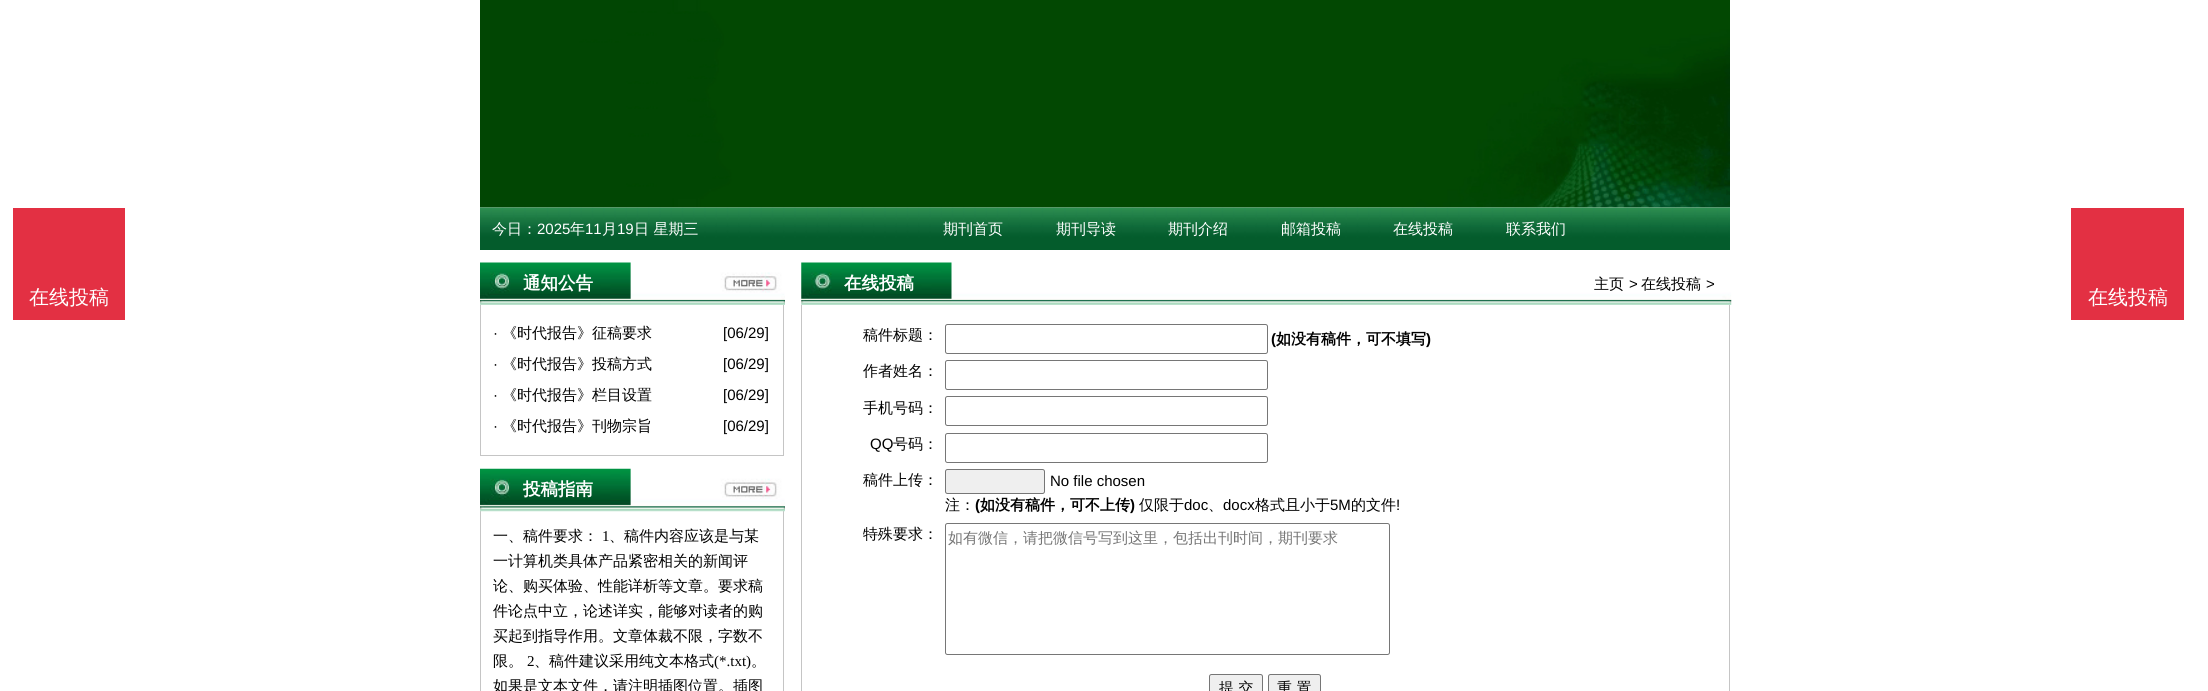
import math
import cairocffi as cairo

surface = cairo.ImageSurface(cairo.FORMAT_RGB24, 2208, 691)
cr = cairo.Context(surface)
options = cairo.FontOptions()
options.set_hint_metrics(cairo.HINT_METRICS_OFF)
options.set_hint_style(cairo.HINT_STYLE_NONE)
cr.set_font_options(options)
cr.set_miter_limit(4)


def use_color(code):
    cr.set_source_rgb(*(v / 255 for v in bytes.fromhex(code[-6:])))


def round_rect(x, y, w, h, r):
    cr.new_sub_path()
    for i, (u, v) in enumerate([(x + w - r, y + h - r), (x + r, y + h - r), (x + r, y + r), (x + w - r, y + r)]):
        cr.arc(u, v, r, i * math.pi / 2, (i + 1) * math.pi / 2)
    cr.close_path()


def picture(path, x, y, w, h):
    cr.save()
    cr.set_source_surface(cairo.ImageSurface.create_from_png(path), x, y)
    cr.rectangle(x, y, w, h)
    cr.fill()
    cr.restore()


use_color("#ffffff")
cr.paint()
picture("img1.png", 480, 0, 1250, 208)
picture("img2.png", 480, 207, 1250, 43)
cr.select_font_face("WenQuanYi Zen Hei Medium")
cr.set_font_size(15)
use_color("#ffffff")
cr.move_to(492, 234)
cr.show_text("今日：")
cr.select_font_face("Liberation Sans")
cr.move_to(537, 234)
cr.show_text("2025")
cr.select_font_face("WenQuanYi Zen Hei Medium")
cr.move_to(570, 234)
cr.show_text("年")
cr.select_font_face("Liberation Sans")
cr.move_to(585, 234)
cr.show_text("11")
cr.select_font_face("WenQuanYi Zen Hei Medium")
cr.move_to(602, 234)
cr.show_text("月")
cr.select_font_face("Liberation Sans")
cr.move_to(617, 234)
cr.show_text("19")
cr.select_font_face("WenQuanYi Zen Hei Medium")
cr.move_to(634, 234)
cr.show_text("日 星期三")
cr.move_to(943, 234)
cr.show_text("期刊首页")
cr.move_to(1056, 234)
cr.show_text("期刊导读")
cr.move_to(1168, 234)
cr.show_text("期刊介绍")
cr.move_to(1281, 234)
cr.show_text("邮箱投稿")
cr.move_to(1393, 234)
cr.show_text("在线投稿")
cr.move_to(1506, 234)
cr.show_text("联系我们")
use_color("#e33043")
cr.rectangle(13, 208, 112, 112)
cr.fill()
cr.set_font_size(20)
use_color("#ffffff")
cr.move_to(29, 304)
cr.show_text("在线投稿")
picture("img3.png", 480, 262, 305, 43)
cr.select_font_face("WenQuanYi Zen Hei", cairo.FONT_SLANT_NORMAL, cairo.FONT_WEIGHT_BOLD)
cr.set_font_size(17.5)
cr.move_to(523, 289)
cr.show_text("通知公告")
use_color("#c5c5c5")
cr.rectangle(783, 305, 1, 151)
cr.fill()
cr.rectangle(480, 455, 304, 1)
cr.fill()
cr.rectangle(480, 305, 1, 151)
cr.fill()
cr.select_font_face("Liberation Sans")
cr.set_font_size(15)
use_color("#000000")
cr.move_to(493, 338)
cr.show_text("·")
cr.select_font_face("WenQuanYi Zen Hei Medium")
cr.move_to(502, 338)
cr.show_text("《时代报告》征稿要求")
cr.select_font_face("Liberation Sans")
cr.move_to(723, 338)
cr.show_text("[06/29]")
cr.move_to(493, 369)
cr.show_text("·")
cr.select_font_face("WenQuanYi Zen Hei Medium")
cr.move_to(502, 369)
cr.show_text("《时代报告》投稿方式")
cr.select_font_face("Liberation Sans")
cr.move_to(723, 369)
cr.show_text("[06/29]")
cr.move_to(493, 400)
cr.show_text("·")
cr.select_font_face("WenQuanYi Zen Hei Medium")
cr.move_to(502, 400)
cr.show_text("《时代报告》栏目设置")
cr.select_font_face("Liberation Sans")
cr.move_to(723, 400)
cr.show_text("[06/29]")
cr.move_to(493, 431)
cr.show_text("·")
cr.select_font_face("WenQuanYi Zen Hei Medium")
cr.move_to(502, 431)
cr.show_text("《时代报告》刊物宗旨")
cr.select_font_face("Liberation Sans")
cr.move_to(723, 431)
cr.show_text("[06/29]")
use_color("#c5c5c5")
cr.rectangle(783, 511, 1, 180)
cr.fill()
cr.rectangle(480, 511, 1, 180)
cr.fill()
picture("img4.png", 480, 468, 305, 44)
cr.select_font_face("WenQuanYi Zen Hei", cairo.FONT_SLANT_NORMAL, cairo.FONT_WEIGHT_BOLD)
cr.set_font_size(17.5)
use_color("#ffffff")
cr.move_to(523, 495)
cr.show_text("投稿指南")
cr.select_font_face("WenQuanYi Zen Hei Medium")
cr.set_font_size(15)
use_color("#000000")
cr.move_to(493, 541)
cr.show_text("一、稿件要求：")
cr.select_font_face("Liberation Serif")
cr.move_to(602, 541)
cr.show_text("1")
cr.select_font_face("WenQuanYi Zen Hei Medium")
cr.move_to(609, 541)
cr.show_text("、稿件内容应该是与某")
cr.move_to(493, 566)
cr.show_text("一计算机类具体产品紧密相关的新闻评")
cr.move_to(493, 591)
cr.show_text("论、购买体验、性能详析等文章。要求稿")
cr.move_to(493, 616)
cr.show_text("件论点中立，论述详实，能够对读者的购")
cr.move_to(493, 641)
cr.show_text("买起到指导作用。文章体裁不限，字数不")
cr.move_to(493, 666)
cr.show_text("限。")
cr.select_font_face("Liberation Serif")
cr.move_to(527, 666)
cr.show_text("2")
cr.select_font_face("WenQuanYi Zen Hei Medium")
cr.move_to(534, 666)
cr.show_text("、稿件建议采用纯文本格式")
cr.select_font_face("Liberation Serif")
cr.move_to(714, 666)
cr.show_text("(*.txt)")
cr.select_font_face("WenQuanYi Zen Hei Medium")
cr.move_to(751, 666)
cr.show_text("。")
cr.move_to(493, 691)
cr.show_text("如果是文本文件，请注明插图位置。插图")
picture("img5.png", 801, 262, 931, 43)
cr.select_font_face("WenQuanYi Zen Hei", cairo.FONT_SLANT_NORMAL, cairo.FONT_WEIGHT_BOLD)
cr.set_font_size(17.5)
use_color("#ffffff")
cr.move_to(844, 289)
cr.show_text("在线投稿")
cr.select_font_face("WenQuanYi Zen Hei Medium")
cr.set_font_size(15)
use_color("#000000")
cr.move_to(1594, 289)
cr.show_text("主页")
cr.select_font_face("Liberation Sans")
cr.move_to(1629, 289)
cr.show_text(">")
cr.select_font_face("WenQuanYi Zen Hei Medium")
cr.move_to(1641, 289)
cr.show_text("在线投稿")
cr.select_font_face("Liberation Sans")
cr.move_to(1706, 289)
cr.show_text(">")
use_color("#c5c5c5")
cr.rectangle(1729, 305, 1, 386)
cr.fill()
cr.rectangle(801, 305, 1, 386)
cr.fill()
cr.select_font_face("WenQuanYi Zen Hei Medium")
use_color("#000000")
cr.move_to(863, 340)
cr.show_text("稿件标题：")
round_rect(945.5, 324.5, 322, 29, 2)
use_color("#767676")
cr.set_line_width(1)
cr.stroke()
cr.select_font_face("Liberation Sans", cairo.FONT_SLANT_NORMAL, cairo.FONT_WEIGHT_BOLD)
use_color("#000000")
cr.move_to(1271, 344)
cr.show_text("(")
cr.select_font_face("WenQuanYi Zen Hei", cairo.FONT_SLANT_NORMAL, cairo.FONT_WEIGHT_BOLD)
cr.move_to(1276, 344)
cr.show_text("如没有稿件，可不填写")
cr.select_font_face("Liberation Sans", cairo.FONT_SLANT_NORMAL, cairo.FONT_WEIGHT_BOLD)
cr.move_to(1426, 344)
cr.show_text(")")
cr.select_font_face("WenQuanYi Zen Hei Medium")
cr.move_to(863, 376)
cr.show_text("作者姓名：")
round_rect(945.5, 360.5, 322, 29, 2)
use_color("#767676")
cr.stroke()
use_color("#000000")
cr.move_to(863, 413)
cr.show_text("手机号码：")
round_rect(945.5, 396.5, 322, 29, 2)
use_color("#767676")
cr.stroke()
cr.select_font_face("Liberation Sans")
use_color("#000000")
cr.move_to(870, 449)
cr.show_text("QQ")
cr.select_font_face("WenQuanYi Zen Hei Medium")
cr.move_to(893, 449)
cr.show_text("号码：")
round_rect(945.5, 433.5, 322, 29, 2)
use_color("#767676")
cr.stroke()
use_color("#000000")
cr.move_to(863, 485)
cr.show_text("稿件上传：")
use_color("#efefef")
round_rect(945.5, 469.5, 99, 24, 2)
cr.fill_preserve()
use_color("#767676")
cr.stroke()
cr.select_font_face("Liberation Sans")
use_color("#000000")
cr.move_to(1050, 486)
cr.show_text("No file chosen")
cr.select_font_face("WenQuanYi Zen Hei Medium")
cr.move_to(945, 510)
cr.show_text("注：")
cr.select_font_face("Liberation Sans", cairo.FONT_SLANT_NORMAL, cairo.FONT_WEIGHT_BOLD)
cr.move_to(975, 510)
cr.show_text("(")
cr.select_font_face("WenQuanYi Zen Hei", cairo.FONT_SLANT_NORMAL, cairo.FONT_WEIGHT_BOLD)
cr.move_to(980, 510)
cr.show_text("如没有稿件，可不上传")
cr.select_font_face("Liberation Sans", cairo.FONT_SLANT_NORMAL, cairo.FONT_WEIGHT_BOLD)
cr.move_to(1130, 510)
cr.show_text(")")
cr.select_font_face("WenQuanYi Zen Hei Medium")
cr.move_to(1139, 510)
cr.show_text("仅限于")
cr.select_font_face("Liberation Sans")
cr.move_to(1184, 510)
cr.show_text("doc")
cr.select_font_face("WenQuanYi Zen Hei Medium")
cr.move_to(1208, 510)
cr.show_text("、")
cr.select_font_face("Liberation Sans")
cr.move_to(1223, 510)
cr.show_text("docx")
cr.select_font_face("WenQuanYi Zen Hei Medium")
cr.move_to(1255, 510)
cr.show_text("格式且小于")
cr.select_font_face("Liberation Sans")
cr.move_to(1330, 510)
cr.show_text("5M")
cr.select_font_face("WenQuanYi Zen Hei Medium")
cr.move_to(1351, 510)
cr.show_text("的文件")
cr.select_font_face("Liberation Sans")
cr.move_to(1396, 510)
cr.show_text("!")
cr.select_font_face("WenQuanYi Zen Hei Medium")
cr.move_to(863, 539)
cr.show_text("特殊要求：")
round_rect(945.5, 523.5, 444, 131, 2)
use_color("#767676")
cr.stroke()
use_color("#757575")
cr.move_to(948, 543)
cr.show_text("如有微信，请把微信号写到这里，包括出刊时间，期刊要求")
use_color("#efefef")
round_rect(1209.5, 674.5, 53, 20, 2)
cr.fill_preserve()
use_color("#767676")
cr.stroke()
use_color("#000000")
cr.move_to(1219, 693)
cr.show_text("提 交")
use_color("#efefef")
round_rect(1268.5, 674.5, 52, 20, 2)
cr.fill_preserve()
use_color("#767676")
cr.stroke()
use_color("#000000")
cr.move_to(1277, 693)
cr.show_text("重 置")
use_color("#e33043")
cr.rectangle(2071, 208, 113, 112)
cr.fill()
cr.set_font_size(20)
use_color("#ffffff")
cr.move_to(2088, 304)
cr.show_text("在线投稿")
surface.write_to_png("result.png")
